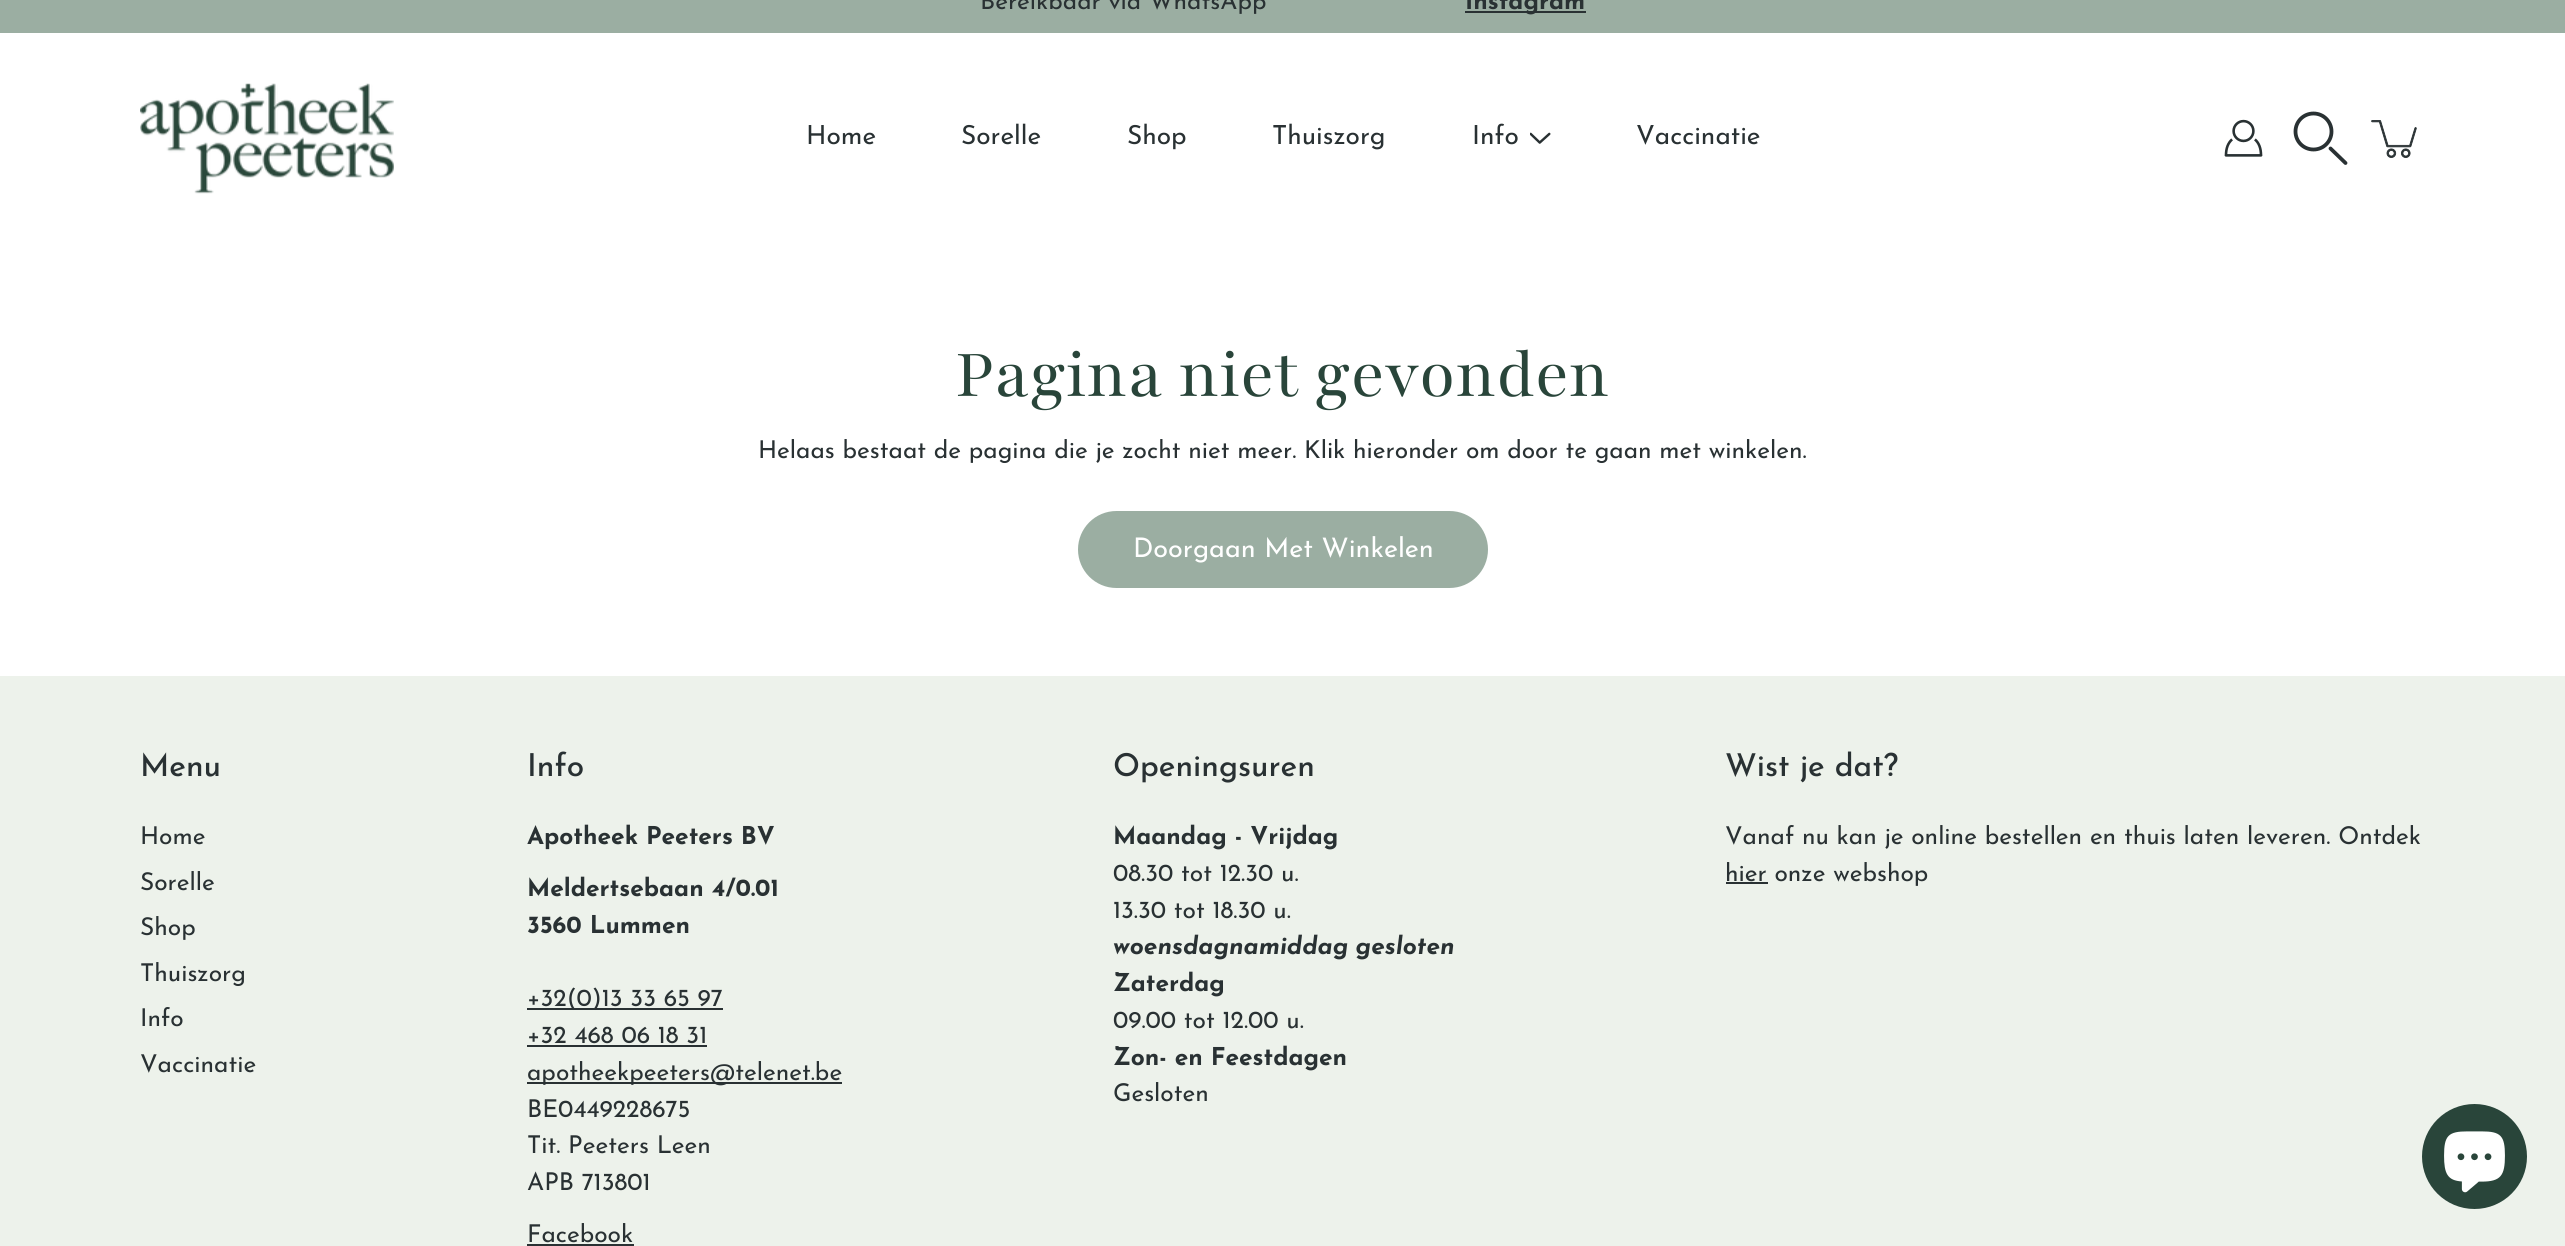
import math
import cairocffi as cairo

surface = cairo.ImageSurface(cairo.FORMAT_RGB24, 2565, 1246)
cr = cairo.Context(surface)
options = cairo.FontOptions()
options.set_hint_metrics(cairo.HINT_METRICS_OFF)
options.set_hint_style(cairo.HINT_STYLE_NONE)
cr.set_font_options(options)
cr.set_miter_limit(4)


def use_color(code):
    cr.set_source_rgb(*(v / 255 for v in bytes.fromhex(code[-6:])))


def round_rect(x, y, w, h, r):
    cr.new_sub_path()
    for i, (u, v) in enumerate([(x + w - r, y + h - r), (x + r, y + h - r), (x + r, y + r), (x + w - r, y + r)]):
        cr.arc(u, v, r, i * math.pi / 2, (i + 1) * math.pi / 2)
    cr.close_path()


def picture(path, x, y, w, h):
    cr.save()
    cr.set_source_surface(cairo.ImageSurface.create_from_png(path), x, y)
    cr.rectangle(x, y, w, h)
    cr.fill()
    cr.restore()


use_color("#ffffff")
cr.paint()
use_color("#9baea2")
cr.rectangle(0, 0, 2565, 33)
cr.fill()
cr.select_font_face("Josefin Sans")
cr.set_font_size(24.5)
use_color("#293133")
cr.move_to(980, 9)
cr.show_text("Bereikbaar via WhatsApp")
cr.rectangle(1465, 11, 121, 2)
cr.fill()
cr.select_font_face("Josefin Sans", cairo.FONT_SLANT_NORMAL, cairo.FONT_WEIGHT_BOLD)
cr.move_to(1465, 9)
cr.show_text("Instagram")
picture("img1.png", 140, 83, 254, 111)
cr.select_font_face("Josefin Sans")
cr.set_font_size(26.25)
cr.move_to(806, 144)
cr.show_text("Home")
cr.move_to(961, 144)
cr.show_text("Sorelle")
cr.move_to(1127, 144)
cr.show_text("Shop")
cr.move_to(1272, 144)
cr.show_text("Thuiszorg")
cr.move_to(1472, 144)
cr.show_text("Info")
picture("img2.png", 1530, 132, 21, 12)
cr.move_to(1636, 144)
cr.show_text("Vaccinatie")
picture("img3.png", 2224, 119, 39, 38)
cr.new_path()
cr.move_to(2331.5, 131.5)
cr.curve_to(2331.5, 141.5, 2323.5, 149.5, 2313.5, 149.5)
cr.curve_to(2303.5, 149.5, 2295.5, 141.5, 2295.5, 131.5)
cr.curve_to(2295.5, 121.5, 2303.5, 113.5, 2313.5, 113.5)
cr.curve_to(2323.5, 113.5, 2331.5, 121.5, 2331.5, 131.5)
cr.close_path()
cr.set_line_width(3.8)
cr.stroke()
cr.new_path()
cr.move_to(2330.5, 148.5)
cr.line_to(2345.5, 163)
cr.set_line_cap(cairo.LINE_CAP_ROUND)
cr.stroke()
picture("img4.png", 2371, 120, 46, 38)
cr.select_font_face("Playfair")
cr.set_font_size(73.5)
use_color("#29453a")
cr.move_to(955, 396)
cr.show_text("Pagina niet gevonden")
cr.select_font_face("Josefin Sans")
cr.set_font_size(24.5)
use_color("#293133")
cr.move_to(758, 458)
cr.show_text("Helaas bestaat de pagina die je zocht niet meer. Klik hieronder om door te gaan met winkelen.")
use_color("#9baea2")
round_rect(1079, 512, 408, 75, 37.5)
cr.fill_preserve()
cr.set_line_width(2)
cr.set_line_cap(cairo.LINE_CAP_BUTT)
cr.stroke()
cr.set_font_size(27)
use_color("#ffffff")
cr.move_to(1133, 557)
cr.show_text("Doorgaan Met Winkelen")
use_color("#edf2eb")
cr.rectangle(0, 676, 2565, 570)
cr.fill()
cr.select_font_face("Josefin Sans Medium")
cr.set_font_size(31.5)
use_color("#293133")
cr.move_to(140, 776)
cr.show_text("Menu")
cr.select_font_face("Josefin Sans")
cr.set_font_size(24.5)
cr.move_to(140, 844)
cr.show_text("Home")
cr.move_to(140, 890)
cr.show_text("Sorelle")
cr.move_to(140, 935)
cr.show_text("Shop")
cr.move_to(140, 981)
cr.show_text("Thuiszorg")
cr.move_to(140, 1026)
cr.show_text("Info")
cr.move_to(140, 1072)
cr.show_text("Vaccinatie")
cr.select_font_face("Josefin Sans Medium")
cr.set_font_size(31.5)
cr.move_to(527, 776)
cr.show_text("Info")
cr.select_font_face("Josefin Sans", cairo.FONT_SLANT_NORMAL, cairo.FONT_WEIGHT_BOLD)
cr.set_font_size(24.5)
cr.move_to(527, 844)
cr.show_text("Apotheek Peeters BV")
cr.move_to(527, 896)
cr.show_text("Meldertsebaan 4/0.01")
cr.move_to(527, 933)
cr.show_text("3560 Lummen")
cr.rectangle(527, 1008, 196, 2)
cr.fill()
cr.select_font_face("Josefin Sans")
cr.move_to(527, 1006)
cr.show_text("+32(0)13 33 65 97")
cr.move_to(527, 1043)
cr.show_text("+32 468 06 18 31")
cr.rectangle(527, 1045, 180, 2)
cr.fill()
cr.rectangle(527, 1082, 315, 2)
cr.fill()
cr.move_to(527, 1080)
cr.show_text("apotheekpeeters@telenet.be")
cr.move_to(527, 1117)
cr.show_text("BE0449228675")
cr.move_to(527, 1153)
cr.show_text("Tit. Peeters Leen")
cr.move_to(527, 1190)
cr.show_text("APB 713801")
cr.move_to(527, 1242)
cr.show_text("Facebook")
cr.rectangle(527, 1244, 107, 2)
cr.fill()
cr.select_font_face("Josefin Sans Medium")
cr.set_font_size(31.5)
cr.move_to(1113, 776)
cr.show_text("Openingsuren")
cr.select_font_face("Josefin Sans", cairo.FONT_SLANT_NORMAL, cairo.FONT_WEIGHT_BOLD)
cr.set_font_size(24.5)
cr.move_to(1113, 844)
cr.show_text("Maandag - Vrijdag")
cr.select_font_face("Josefin Sans")
cr.move_to(1113, 881)
cr.show_text("08.30 tot 12.30 u.")
cr.move_to(1113, 918)
cr.show_text("13.30 tot 18.30 u.")
cr.select_font_face("Josefin Sans", cairo.FONT_SLANT_ITALIC, cairo.FONT_WEIGHT_BOLD)
cr.move_to(1113, 954)
cr.show_text("woensdagnamiddag gesloten")
cr.select_font_face("Josefin Sans", cairo.FONT_SLANT_NORMAL, cairo.FONT_WEIGHT_BOLD)
cr.move_to(1113, 991)
cr.show_text("Zaterdag")
cr.select_font_face("Josefin Sans")
cr.move_to(1113, 1028)
cr.show_text("09.00 tot 12.00 u.")
cr.select_font_face("Josefin Sans", cairo.FONT_SLANT_NORMAL, cairo.FONT_WEIGHT_BOLD)
cr.move_to(1113, 1065)
cr.show_text("Zon- en Feestdagen")
cr.select_font_face("Josefin Sans")
cr.move_to(1113, 1101)
cr.show_text("Gesloten")
cr.select_font_face("Josefin Sans Medium")
cr.set_font_size(31.5)
cr.move_to(1725, 776)
cr.show_text("Wist je dat?")
cr.select_font_face("Josefin Sans")
cr.set_font_size(24.5)
cr.move_to(1725, 844)
cr.show_text("Vanaf nu kan je online bestellen en thuis laten leveren. Ontdek")
cr.rectangle(1726, 882, 42, 2)
cr.fill()
cr.move_to(1725, 881)
cr.show_text("hier onze webshop")
use_color("#29453a")
cr.new_path()
cr.arc(2474.5, 1156.5, 52.5, 0, 2 * math.pi)
cr.fill()
picture("img5.png", 2444, 1131, 61, 62)
surface.write_to_png("result.png")
